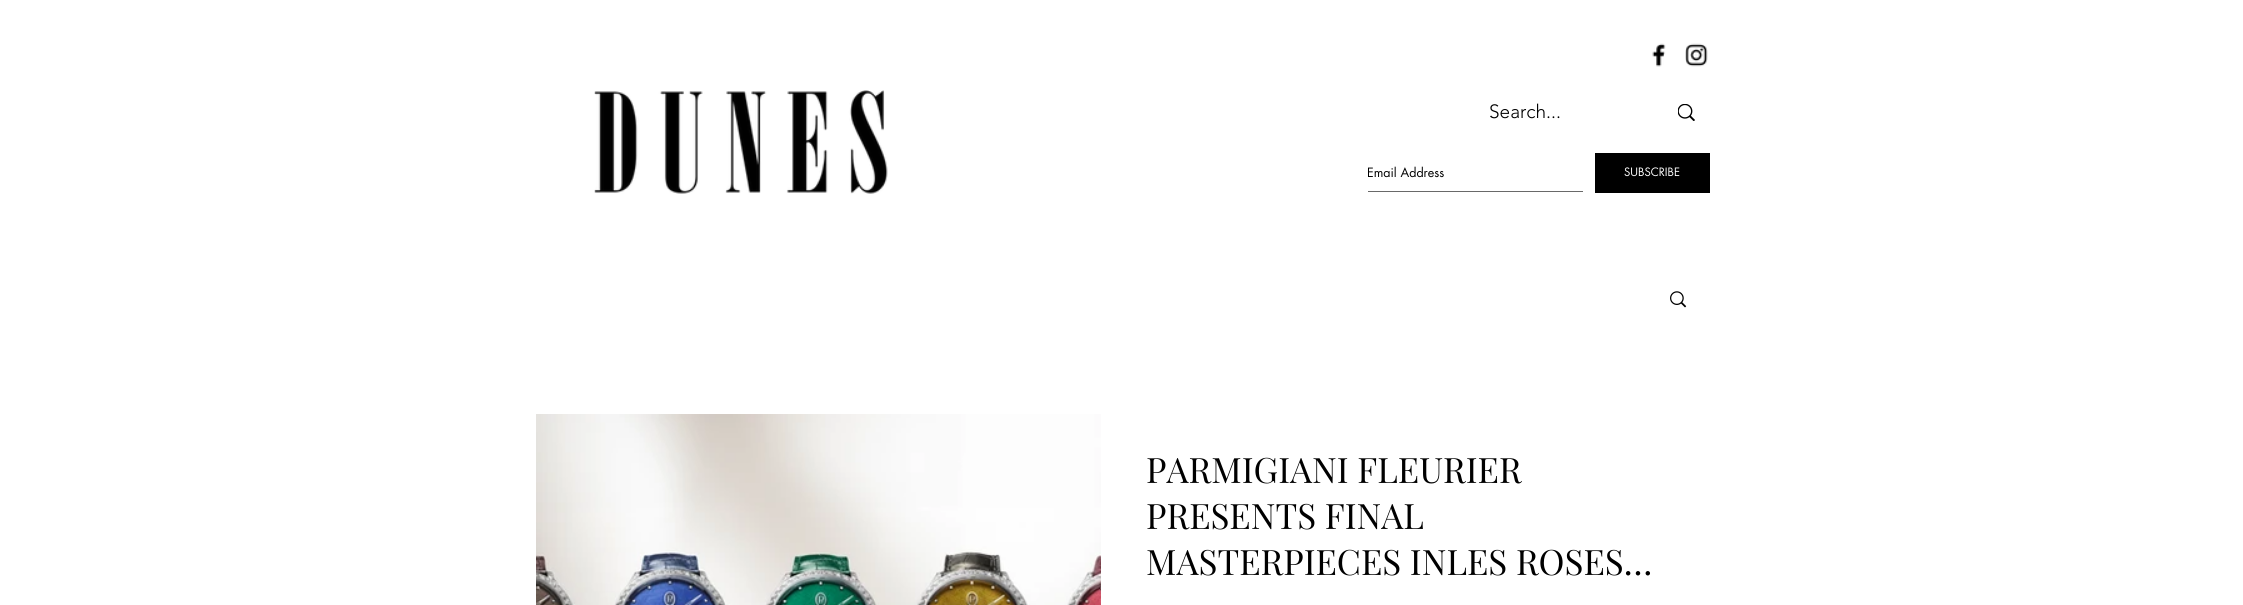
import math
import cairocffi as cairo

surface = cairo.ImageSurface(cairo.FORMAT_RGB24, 2243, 605)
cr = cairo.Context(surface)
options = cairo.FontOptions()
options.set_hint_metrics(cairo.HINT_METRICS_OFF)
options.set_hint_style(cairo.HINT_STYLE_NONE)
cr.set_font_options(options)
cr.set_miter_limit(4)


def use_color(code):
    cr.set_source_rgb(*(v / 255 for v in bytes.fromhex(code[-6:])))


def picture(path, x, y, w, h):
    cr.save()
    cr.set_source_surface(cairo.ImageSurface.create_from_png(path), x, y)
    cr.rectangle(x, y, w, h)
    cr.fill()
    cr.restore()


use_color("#ffffff")
cr.paint()
picture("img1.png", 1652, 43, 14, 24)
picture("img2.png", 1685, 43, 23, 24)
picture("img3.png", 594, 90, 294, 104)
cr.select_font_face("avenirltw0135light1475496 Light")
cr.set_font_size(19)
use_color("#000000")
cr.move_to(1489, 118)
cr.show_text("Search...")
picture("img4.png", 1678, 104, 17, 17)
use_color("#696969")
cr.rectangle(1368, 191, 215, 1)
cr.fill()
cr.save()
cr.rectangle(1368, 164, 211, 17)
cr.clip()
cr.select_font_face("futura")
cr.set_font_size(12.5)
use_color("#000000")
cr.move_to(1367, 177)
cr.show_text("Email Address")
cr.restore()
use_color("#000000")
cr.rectangle(1595, 153, 115, 40)
cr.fill()
cr.select_font_face("futura")
cr.set_font_size(11.25)
use_color("#ffffff")
cr.move_to(1624, 176)
cr.show_text("SUBSCRIBE")
picture("img5.png", 1670, 291, 17, 17)
picture("img6.png", 536, 414, 565, 191)
cr.select_font_face("Playfair Display")
cr.set_font_size(35)
use_color("#000000")
cr.move_to(1146, 483)
cr.show_text("PARMIGIANI FLEURIER")
cr.move_to(1146, 529)
cr.show_text("PRESENTS FINAL")
cr.move_to(1146, 575)
cr.show_text("MASTERPIECES INLES ROSES…")
surface.write_to_png("result.png")
